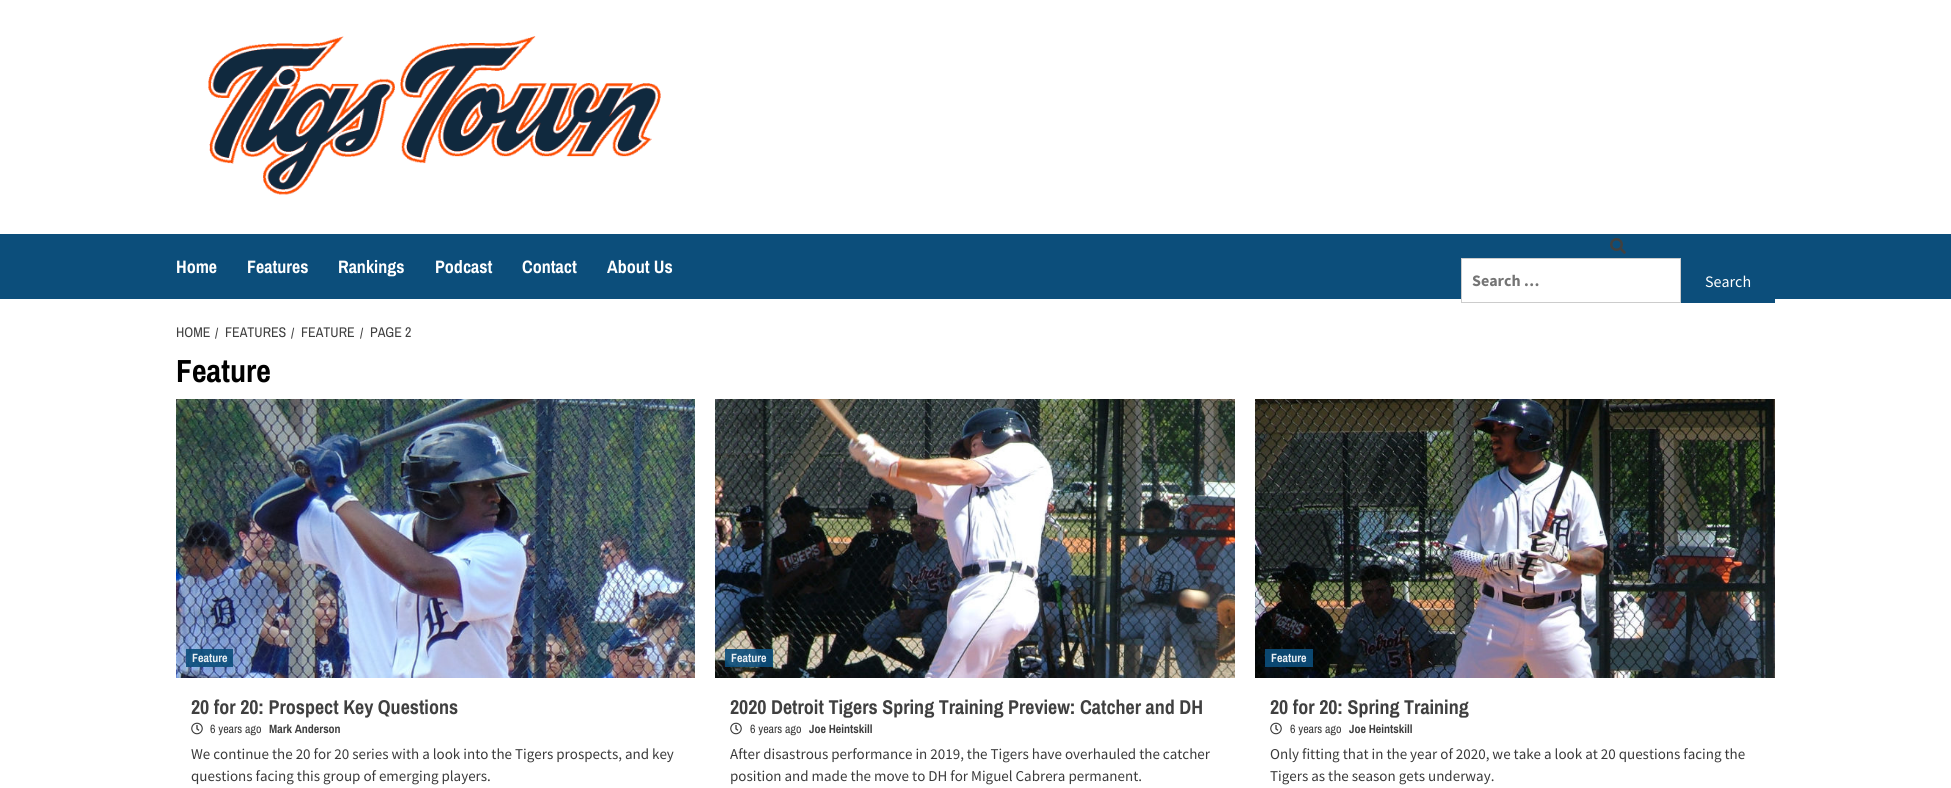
import math
import cairocffi as cairo

surface = cairo.ImageSurface(cairo.FORMAT_RGB24, 1951, 788)
cr = cairo.Context(surface)
options = cairo.FontOptions()
options.set_hint_metrics(cairo.HINT_METRICS_OFF)
options.set_hint_style(cairo.HINT_STYLE_NONE)
cr.set_font_options(options)
cr.set_miter_limit(4)


def use_color(code):
    cr.set_source_rgb(*(v / 255 for v in bytes.fromhex(code[-6:])))


def picture(path, x, y, w, h):
    cr.save()
    cr.set_source_surface(cairo.ImageSurface.create_from_png(path), x, y)
    cr.rectangle(x, y, w, h)
    cr.fill()
    cr.restore()


use_color("#ffffff")
cr.paint()
picture("img1.png", 208, 36, 453, 159)
use_color("#0c4e7b")
cr.rectangle(0, 234, 1951, 65)
cr.fill()
cr.select_font_face("Archivo Narrow", cairo.FONT_SLANT_NORMAL, cairo.FONT_WEIGHT_BOLD)
cr.set_font_size(18)
use_color("#ffffff")
cr.move_to(176, 273)
cr.show_text("Home")
cr.move_to(247, 273)
cr.show_text("Features")
cr.move_to(338, 273)
cr.show_text("Rankings")
cr.move_to(435, 273)
cr.show_text("Podcast")
cr.move_to(522, 273)
cr.show_text("Contact")
cr.move_to(607, 273)
cr.show_text("About Us")
picture("img2.png", 1610, 238, 16, 16)
cr.rectangle(1462, 259, 218, 40)
cr.fill()
cr.rectangle(1461.5, 258.5, 219, 44)
use_color("#cccccc")
cr.set_line_width(1)
cr.stroke()
cr.select_font_face("Source Sans Pro", cairo.FONT_SLANT_NORMAL, cairo.FONT_WEIGHT_BOLD)
cr.set_font_size(16)
use_color("#757575")
cr.move_to(1472, 286)
cr.show_text("Search …")
use_color("#0c4e7b")
cr.rectangle(1681, 299, 94, 4)
cr.fill()
cr.select_font_face("Source Sans Pro")
use_color("#ffffff")
cr.move_to(1705, 287)
cr.show_text("Search")
cr.select_font_face("Archivo Narrow")
cr.set_font_size(14)
use_color("#404040")
cr.move_to(176, 337)
cr.show_text("HOME")
cr.move_to(215, 338)
cr.show_text("/")
cr.move_to(225, 337)
cr.show_text("FEATURES")
cr.move_to(291, 338)
cr.show_text("/")
cr.move_to(301, 337)
cr.show_text("FEATURE")
cr.move_to(360, 338)
cr.show_text("/")
cr.move_to(370, 337)
cr.show_text("PAGE 2")
cr.select_font_face("Archivo Narrow", cairo.FONT_SLANT_NORMAL, cairo.FONT_WEIGHT_BOLD)
cr.set_font_size(32)
use_color("#000000")
cr.move_to(176, 382)
cr.show_text("Feature")
picture("img3.png", 176, 399, 519, 279)
cr.set_source_rgba(0.047, 0.306, 0.482, 0.9)
cr.rectangle(186, 649, 47, 18)
cr.fill()
cr.set_font_size(12)
use_color("#e8eef3")
cr.move_to(192, 662)
cr.show_text("Feature")
cr.set_font_size(20)
use_color("#404040")
cr.move_to(191, 714)
cr.show_text("20 for 20: Prospect Key Questions")
picture("img4.png", 191, 722, 12, 13)
cr.select_font_face("Archivo Narrow")
cr.set_font_size(12)
use_color("#3a3a3a")
cr.move_to(210, 733)
cr.show_text("6 years ago")
cr.select_font_face("Archivo Narrow", cairo.FONT_SLANT_NORMAL, cairo.FONT_WEIGHT_BOLD)
use_color("#404040")
cr.move_to(269, 733)
cr.show_text("Mark Anderson")
cr.select_font_face("Source Sans Pro")
cr.set_font_size(15)
use_color("#3a3a3a")
cr.move_to(191, 759)
cr.show_text("We continue the 20 for 20 series with a look into the Tigers prospects, and key")
cr.move_to(191, 781)
cr.show_text("questions facing this group of emerging players.")
picture("img5.png", 715, 399, 520, 279)
cr.set_source_rgba(0.047, 0.306, 0.482, 0.9)
cr.rectangle(725, 649, 48, 18)
cr.fill()
cr.select_font_face("Archivo Narrow", cairo.FONT_SLANT_NORMAL, cairo.FONT_WEIGHT_BOLD)
cr.set_font_size(12)
use_color("#e8eef3")
cr.move_to(731, 662)
cr.show_text("Feature")
cr.set_font_size(20)
use_color("#404040")
cr.move_to(730, 714)
cr.show_text("2020 Detroit Tigers Spring Training Preview: Catcher and DH")
picture("img4.png", 730, 722, 12, 13)
cr.select_font_face("Archivo Narrow")
cr.set_font_size(12)
use_color("#3a3a3a")
cr.move_to(750, 733)
cr.show_text("6 years ago")
cr.select_font_face("Archivo Narrow", cairo.FONT_SLANT_NORMAL, cairo.FONT_WEIGHT_BOLD)
use_color("#404040")
cr.move_to(809, 733)
cr.show_text("Joe Heintskill")
cr.select_font_face("Source Sans Pro")
cr.set_font_size(15)
use_color("#3a3a3a")
cr.move_to(730, 759)
cr.show_text("After disastrous performance in 2019, the Tigers have overhauled the catcher")
cr.move_to(730, 781)
cr.show_text("position and made the move to DH for Miguel Cabrera permanent.")
picture("img6.png", 1255, 399, 520, 279)
cr.set_source_rgba(0.047, 0.306, 0.482, 0.9)
cr.rectangle(1265, 649, 48, 18)
cr.fill()
cr.select_font_face("Archivo Narrow", cairo.FONT_SLANT_NORMAL, cairo.FONT_WEIGHT_BOLD)
cr.set_font_size(12)
use_color("#e8eef3")
cr.move_to(1271, 662)
cr.show_text("Feature")
cr.set_font_size(20)
use_color("#404040")
cr.move_to(1270, 714)
cr.show_text("20 for 20: Spring Training")
picture("img4.png", 1270, 722, 12, 13)
cr.select_font_face("Archivo Narrow")
cr.set_font_size(12)
use_color("#3a3a3a")
cr.move_to(1290, 733)
cr.show_text("6 years ago")
cr.select_font_face("Archivo Narrow", cairo.FONT_SLANT_NORMAL, cairo.FONT_WEIGHT_BOLD)
use_color("#404040")
cr.move_to(1349, 733)
cr.show_text("Joe Heintskill")
cr.select_font_face("Source Sans Pro")
cr.set_font_size(15)
use_color("#3a3a3a")
cr.move_to(1270, 759)
cr.show_text("Only fitting that in the year of 2020, we take a look at 20 questions facing the")
cr.move_to(1270, 781)
cr.show_text("Tigers as the season gets underway.")
surface.write_to_png("result.png")
